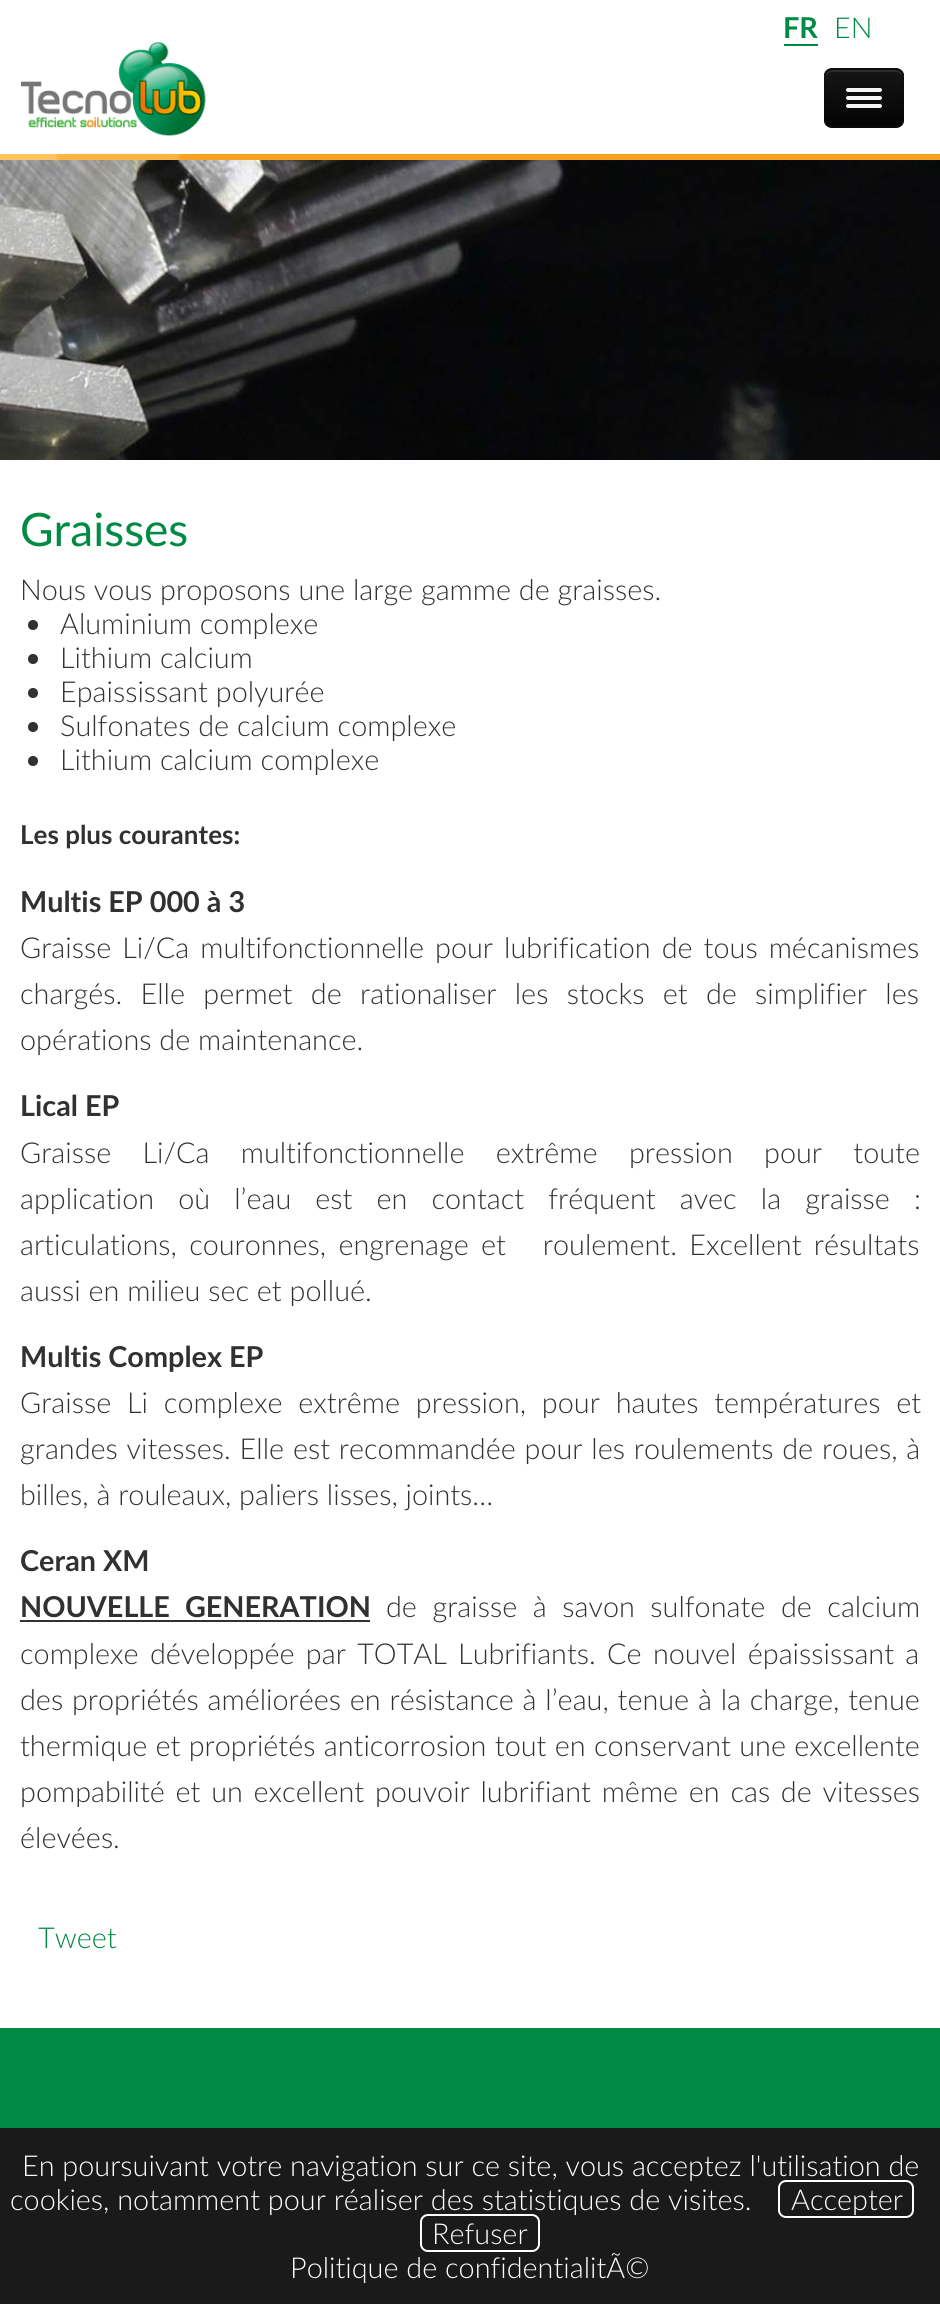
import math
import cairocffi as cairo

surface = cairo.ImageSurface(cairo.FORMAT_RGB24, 940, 2304)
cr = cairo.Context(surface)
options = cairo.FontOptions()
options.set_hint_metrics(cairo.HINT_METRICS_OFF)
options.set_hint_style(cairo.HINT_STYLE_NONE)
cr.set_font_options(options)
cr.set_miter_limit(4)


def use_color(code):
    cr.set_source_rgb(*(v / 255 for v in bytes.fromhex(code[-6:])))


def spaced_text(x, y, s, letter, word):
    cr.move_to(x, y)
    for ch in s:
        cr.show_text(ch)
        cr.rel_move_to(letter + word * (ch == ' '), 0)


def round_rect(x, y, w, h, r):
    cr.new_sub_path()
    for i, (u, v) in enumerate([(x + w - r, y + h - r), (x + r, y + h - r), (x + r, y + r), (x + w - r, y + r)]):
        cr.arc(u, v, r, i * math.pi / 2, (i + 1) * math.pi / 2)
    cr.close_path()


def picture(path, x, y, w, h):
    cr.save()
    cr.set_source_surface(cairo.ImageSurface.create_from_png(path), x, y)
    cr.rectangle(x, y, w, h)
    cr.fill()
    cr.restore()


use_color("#ffffff")
cr.paint()
picture("img1.png", 0, 154, 940, 6)
cr.select_font_face("Lato", cairo.FONT_SLANT_NORMAL, cairo.FONT_WEIGHT_BOLD)
cr.set_font_size(28.8)
use_color("#008a44")
cr.move_to(783, 38)
cr.show_text("FR")
cr.rectangle(784, 44, 34, 2)
cr.fill()
cr.select_font_face("Lato Light")
cr.move_to(834, 38)
cr.show_text("EN")
picture("img2.png", 21, 41, 185, 95)
use_color("#0e0e0e")
round_rect(824, 68, 80, 60, 8)
cr.fill()
cr.save()
round_rect(824, 68, 80, 60, 8)
cr.clip()
gradient = cairo.LinearGradient(864, 70, 864, 126)
gradient.add_color_stop_rgba(0, 0.082, 0.082, 0.082, 1)
gradient.add_color_stop_rgba(1, 0.016, 0.016, 0.016, 1)
cr.set_source(gradient)
cr.rectangle(824, 70, 80, 56)
cr.fill()
cr.restore()
use_color("#2c2c2c")
cr.new_path()
cr.move_to(832, 72)
cr.line_to(896, 72)
cr.curve_to(899, 72, 902, 75, 902, 78)
cr.curve_to(902, 68, 894, 70, 885, 70)
cr.line_to(843, 70)
cr.curve_to(834, 70, 826, 68, 826, 78)
cr.curve_to(826, 75, 829, 72, 832, 72)
cr.close_path()
cr.fill()
cr.new_path()
cr.move_to(901, 125)
cr.curve_to(899.5, 126.5, 898, 127, 896, 127)
cr.line_to(832, 127)
cr.curve_to(830, 127, 828.5, 126.5, 827, 125)
cr.set_source_rgba(0, 0, 0, 0.25)
cr.stroke()
cr.new_path()
cr.move_to(827, 125)
cr.curve_to(825.5, 123.5, 825, 122, 825, 120)
cr.line_to(825, 76)
cr.curve_to(825, 74, 825.5, 72.5, 827, 71)
cr.curve_to(828.5, 69.5, 830, 69, 832, 69)
cr.line_to(896, 69)
cr.curve_to(898, 69, 899.5, 69.5, 901, 71)
cr.curve_to(902.5, 72.5, 903, 74, 903, 76)
cr.line_to(903, 120)
cr.curve_to(903, 122, 902.5, 123.5, 901, 125)
cr.set_source_rgba(0, 0, 0, 0.1)
cr.stroke()
use_color("#0b0b0b")
cr.new_path()
cr.move_to(846.5, 91)
cr.curve_to(844, 95, 853, 94, 853.5, 94)
cr.line_to(874.5, 94)
cr.curve_to(875, 94, 884, 95, 881.5, 91)
cr.curve_to(881.5, 91.5, 880.5, 92, 880, 92)
cr.line_to(848, 92)
cr.curve_to(847.5, 92, 846.5, 91.5, 846.5, 91)
cr.close_path()
cr.fill()
use_color("#f5f5f5")
round_rect(846, 88, 36, 4, 2)
cr.fill()
use_color("#090909")
cr.new_path()
cr.move_to(846.5, 99)
cr.curve_to(844, 103, 853, 102, 853.5, 102)
cr.line_to(874.5, 102)
cr.curve_to(875, 102, 884, 103, 881.5, 99)
cr.curve_to(881.5, 99.5, 880.5, 100, 880, 100)
cr.line_to(848, 100)
cr.curve_to(847.5, 100, 846.5, 99.5, 846.5, 99)
cr.close_path()
cr.fill()
use_color("#f5f5f5")
round_rect(846, 96, 36, 4, 2)
cr.fill()
round_rect(846, 104, 36, 4, 2)
cr.fill()
picture("img3.png", 0, 160, 940, 300)
cr.select_font_face("Lato")
cr.set_font_size(46)
use_color("#008a44")
cr.move_to(20, 546)
cr.show_text("Graisses")
cr.select_font_face("Lato Light")
cr.set_font_size(28.8)
use_color("#313131")
cr.move_to(20, 600)
cr.show_text("Nous vous proposons une large gamme de graisses.")
cr.new_path()
cr.arc(33, 625, 5, 0, 2 * math.pi)
cr.fill()
cr.move_to(60, 634)
cr.show_text("Aluminium complexe")
cr.new_path()
cr.arc(33, 659, 5, 0, 2 * math.pi)
cr.fill()
cr.move_to(60, 668)
cr.show_text("Lithium calcium")
cr.new_path()
cr.arc(33, 693, 5, 0, 2 * math.pi)
cr.fill()
cr.move_to(60, 702)
cr.show_text("Epaississant polyurée")
cr.new_path()
cr.arc(33, 727, 5, 0, 2 * math.pi)
cr.fill()
cr.move_to(60, 736)
cr.show_text("Sulfonates de calcium complexe")
cr.new_path()
cr.arc(33, 761, 5, 0, 2 * math.pi)
cr.fill()
cr.move_to(60, 770)
cr.show_text("Lithium calcium complexe")
cr.select_font_face("Lato", cairo.FONT_SLANT_NORMAL, cairo.FONT_WEIGHT_BOLD)
cr.set_font_size(26)
cr.move_to(20, 844)
cr.show_text("Les plus courantes:")
cr.set_font_size(28.8)
cr.move_to(20, 912)
cr.show_text("Multis EP 000 à 3")
cr.select_font_face("Lato Light")
spaced_text(20, 958, "Graisse Li/Ca multifonctionnelle pour lubrification de tous mécanismes", 0, 3.25)
spaced_text(20, 1004, "chargés. Elle permet de rationaliser les stocks et de simplifier les", 0, 10.5)
cr.move_to(20, 1050)
cr.show_text("opérations de maintenance.")
cr.select_font_face("Lato", cairo.FONT_SLANT_NORMAL, cairo.FONT_WEIGHT_BOLD)
cr.move_to(20, 1116)
cr.show_text("Lical EP")
cr.select_font_face("Lato Light")
spaced_text(20, 1163, "Graisse Li/Ca multifonctionnelle extrême pression pour toute", 0, 23.5)
spaced_text(20, 1209, "application où l’eau est en contact fréquent avec la graisse :", 0, 16.25)
spaced_text(20, 1255, "articulations, couronnes, engrenage et   roulement. Excellent résultats", 0, 4.5)
cr.move_to(20, 1301)
cr.show_text("aussi en milieu sec et pollué.")
cr.select_font_face("Lato", cairo.FONT_SLANT_NORMAL, cairo.FONT_WEIGHT_BOLD)
cr.move_to(20, 1367)
cr.show_text("Multis Complex EP")
cr.select_font_face("Lato Light")
spaced_text(20, 1413, "Graisse Li complexe extrême pression, pour hautes températures et", 0, 8)
spaced_text(20, 1459, "grandes vitesses. Elle est recommandée pour les roulements de roues, à", 0, 1)
cr.move_to(20, 1505)
cr.show_text("billes, à rouleaux, paliers lisses, joints…")
cr.select_font_face("Lato", cairo.FONT_SLANT_NORMAL, cairo.FONT_WEIGHT_BOLD)
cr.move_to(20, 1571)
cr.show_text("Ceran XM")
spaced_text(20, 1617, "NOUVELLE GENERATION", 0, 8)
cr.rectangle(20, 1620, 350, 2)
cr.fill()
cr.select_font_face("Lato Light")
spaced_text(386, 1617, "de graisse à savon sulfonate de calcium", 0, 7.75)
spaced_text(20, 1664, "complexe développée par TOTAL Lubrifiants. Ce nouvel épaississant a", 0, 3.5)
spaced_text(20, 1710, "des propriétés améliorées en résistance à l’eau, tenue à la charge, tenue", 0, 1)
spaced_text(20, 1756, "thermique et propriétés anticorrosion tout en conservant une excellente", 0, 0.5)
spaced_text(20, 1802, "pompabilité et un excellent pouvoir lubrifiant même en cas de vitesses", 0, 2.9)
cr.move_to(20, 1848)
cr.show_text("élevées.")
use_color("#008a44")
cr.move_to(38, 1948)
cr.show_text("Tweet")
cr.rectangle(0, 2028, 940, 100)
cr.fill()
use_color("#1a1a1a")
cr.rectangle(0, 2128, 940, 176)
cr.fill()
use_color("#ffffff")
cr.move_to(22, 2176)
cr.show_text("En poursuivant votre navigation sur ce site, vous acceptez l'utilisation de")
cr.move_to(10, 2210)
cr.show_text("cookies, notamment pour réaliser des statistiques de visites.")
round_rect(779, 2181, 134, 36, 7)
cr.stroke()
cr.move_to(791, 2210)
cr.show_text("Accepter")
round_rect(421, 2215, 118, 36, 7)
cr.stroke()
cr.move_to(432, 2244)
cr.show_text("Refuser")
cr.move_to(290, 2278)
cr.show_text("Politique de confidentialitÃ©")
surface.write_to_png("result.png")
